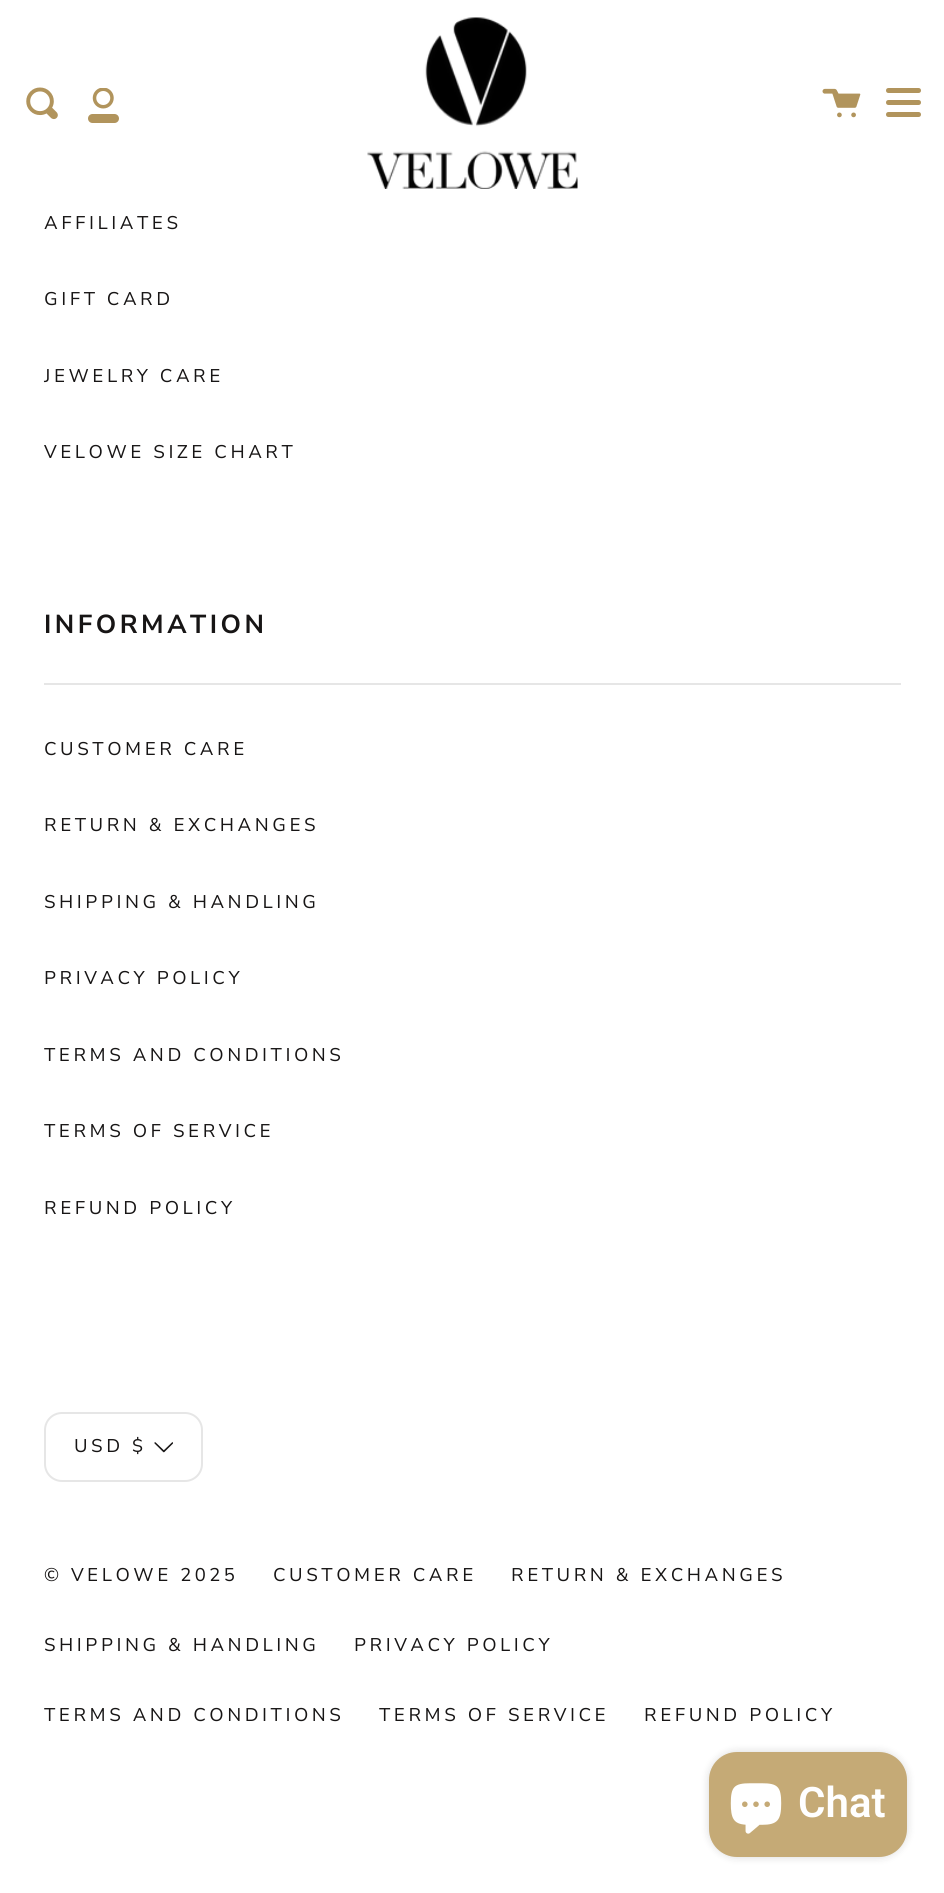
import math
import cairocffi as cairo

surface = cairo.ImageSurface(cairo.FORMAT_RGB24, 944, 1893)
cr = cairo.Context(surface)
options = cairo.FontOptions()
options.set_hint_metrics(cairo.HINT_METRICS_OFF)
options.set_hint_style(cairo.HINT_STYLE_NONE)
cr.set_font_options(options)
cr.set_miter_limit(4)


def use_color(code):
    cr.set_source_rgb(*(v / 255 for v in bytes.fromhex(code[-6:])))


def spaced_text(x, y, s, letter, word):
    cr.move_to(x, y)
    for ch in s:
        cr.show_text(ch)
        cr.rel_move_to(letter + word * (ch == ' '), 0)


def round_rect(x, y, w, h, r):
    cr.new_sub_path()
    for i, (u, v) in enumerate([(x + w - r, y + h - r), (x + r, y + h - r), (x + r, y + r), (x + w - r, y + r)]):
        cr.arc(u, v, r, i * math.pi / 2, (i + 1) * math.pi / 2)
    cr.close_path()


def shadow(x, y, w, h, r, blur, alpha):
    cr.push_group_with_content(cairo.CONTENT_ALPHA)
    cr.set_operator(cairo.OPERATOR_SOURCE)
    for i in range(15, -16, -2):
        e = blur * i / 6
        if min(w, h) + 2 * e > 0:
            cr.set_source_rgba(0, 0, 0, alpha * math.erfc((i - 1) / 8.5) / 2)
            round_rect(x - e, y - e, w + 2 * e, h + 2 * e, max(0, min(r + e + blur * .6, min(w, h) / 2 + e)))
            cr.fill()
    cr.mask(cr.pop_group())


def picture(path, x, y, w, h):
    cr.save()
    cr.set_source_surface(cairo.ImageSurface.create_from_png(path), x, y)
    cr.rectangle(x, y, w, h)
    cr.fill()
    cr.restore()


use_color("#ffffff")
cr.paint()
picture("img1.png", 367, 17, 211, 172)
picture("img2.png", 26, 87, 32, 33)
picture("img3.png", 88, 88, 31, 35)
picture("img4.png", 822, 88, 39, 30)
use_color("#b1945c")
cr.new_path()
cr.move_to(888.5, 88)
cr.line_to(915, 88)
cr.line_to(915, 93)
cr.line_to(888.5, 93)
cr.curve_to(887, 93, 886, 92, 886, 90.5)
cr.curve_to(886, 89, 887, 88, 888.5, 88)
cr.close_path()
cr.fill()
cr.new_path()
cr.move_to(891, 88)
cr.line_to(918.5, 88)
cr.curve_to(920, 88, 921, 89, 921, 90.5)
cr.curve_to(921, 92, 920, 93, 918.5, 93)
cr.line_to(891, 93)
cr.close_path()
cr.fill()
cr.new_path()
cr.move_to(888.5, 100)
cr.line_to(915, 100)
cr.line_to(915, 105)
cr.line_to(888.5, 105)
cr.curve_to(887, 105, 886, 104, 886, 102.5)
cr.curve_to(886, 101, 887, 100, 888.5, 100)
cr.close_path()
cr.fill()
cr.new_path()
cr.move_to(891, 100)
cr.line_to(918.5, 100)
cr.curve_to(920, 100, 921, 101, 921, 102.5)
cr.curve_to(921, 104, 920, 105, 918.5, 105)
cr.line_to(891, 105)
cr.close_path()
cr.fill()
cr.new_path()
cr.move_to(888.5, 112)
cr.line_to(915, 112)
cr.line_to(915, 117)
cr.line_to(888.5, 117)
cr.curve_to(887, 117, 886, 116, 886, 114.5)
cr.curve_to(886, 113, 887, 112, 888.5, 112)
cr.close_path()
cr.fill()
cr.new_path()
cr.move_to(891, 112)
cr.line_to(918.5, 112)
cr.curve_to(920, 112, 921, 113, 921, 114.5)
cr.curve_to(921, 116, 920, 117, 918.5, 117)
cr.line_to(891, 117)
cr.close_path()
cr.fill()
cr.select_font_face("Nunito Sans")
cr.set_font_size(18.4)
use_color("#171515")
spaced_text(44, 229, "AFFILIATES", 3.5, 0)
spaced_text(44, 305, "GIFT CARD", 3.5, 0)
spaced_text(44, 382, "JEWELRY CARE", 3.5, 0)
spaced_text(44, 458, "VELOWE SIZE CHART", 3.5, 0)
cr.select_font_face("Nunito Sans", cairo.FONT_SLANT_NORMAL, cairo.FONT_WEIGHT_BOLD)
cr.set_font_size(26)
spaced_text(44, 633, "INFORMATION", 3.5, 0)
use_color("#e6e6e6")
cr.rectangle(44, 683, 857, 2)
cr.fill()
cr.select_font_face("Nunito Sans")
cr.set_font_size(18.4)
use_color("#171515")
spaced_text(44, 755, "CUSTOMER CARE", 3.5, 0)
spaced_text(44, 831, "RETURN & EXCHANGES", 3.5, 0)
spaced_text(44, 908, "SHIPPING & HANDLING", 3.5, 0)
spaced_text(44, 984, "PRIVACY POLICY", 3.5, 0)
spaced_text(44, 1061, "TERMS AND CONDITIONS", 3.5, 0)
spaced_text(44, 1137, "TERMS OF SERVICE", 3.5, 0)
spaced_text(44, 1214, "REFUND POLICY", 3.5, 0)
round_rect(45, 1413, 157, 68, 17)
use_color("#e6e6e6")
cr.stroke()
use_color("#171515")
spaced_text(74, 1452, "USD $", 3.5, 0)
picture("img5.png", 154, 1442, 19, 11)
spaced_text(44, 1581, "© VELOWE 2025", 3.5, 0)
spaced_text(273, 1581, "CUSTOMER CARE", 3.5, 0)
spaced_text(511, 1581, "RETURN & EXCHANGES", 3.5, 0)
spaced_text(44, 1651, "SHIPPING & HANDLING", 3.5, 0)
spaced_text(354, 1651, "PRIVACY POLICY", 3.5, 0)
spaced_text(44, 1721, "TERMS AND CONDITIONS", 3.5, 0)
spaced_text(379, 1721, "TERMS OF SERVICE", 3.5, 0)
spaced_text(644, 1721, "REFUND POLICY", 3.5, 0)
use_color("#000000")
shadow(709, 1752, 198, 105, 28, 4.5, 0.15)
use_color("#c5aa76")
round_rect(709, 1752, 198, 105, 28)
cr.fill()
picture("img6.png", 730, 1783, 52, 51)
cr.select_font_face("Roboto SemiBold")
cr.set_font_size(42)
use_color("#ffffff")
cr.move_to(798, 1817)
cr.show_text("Chat")
surface.write_to_png("result.png")
